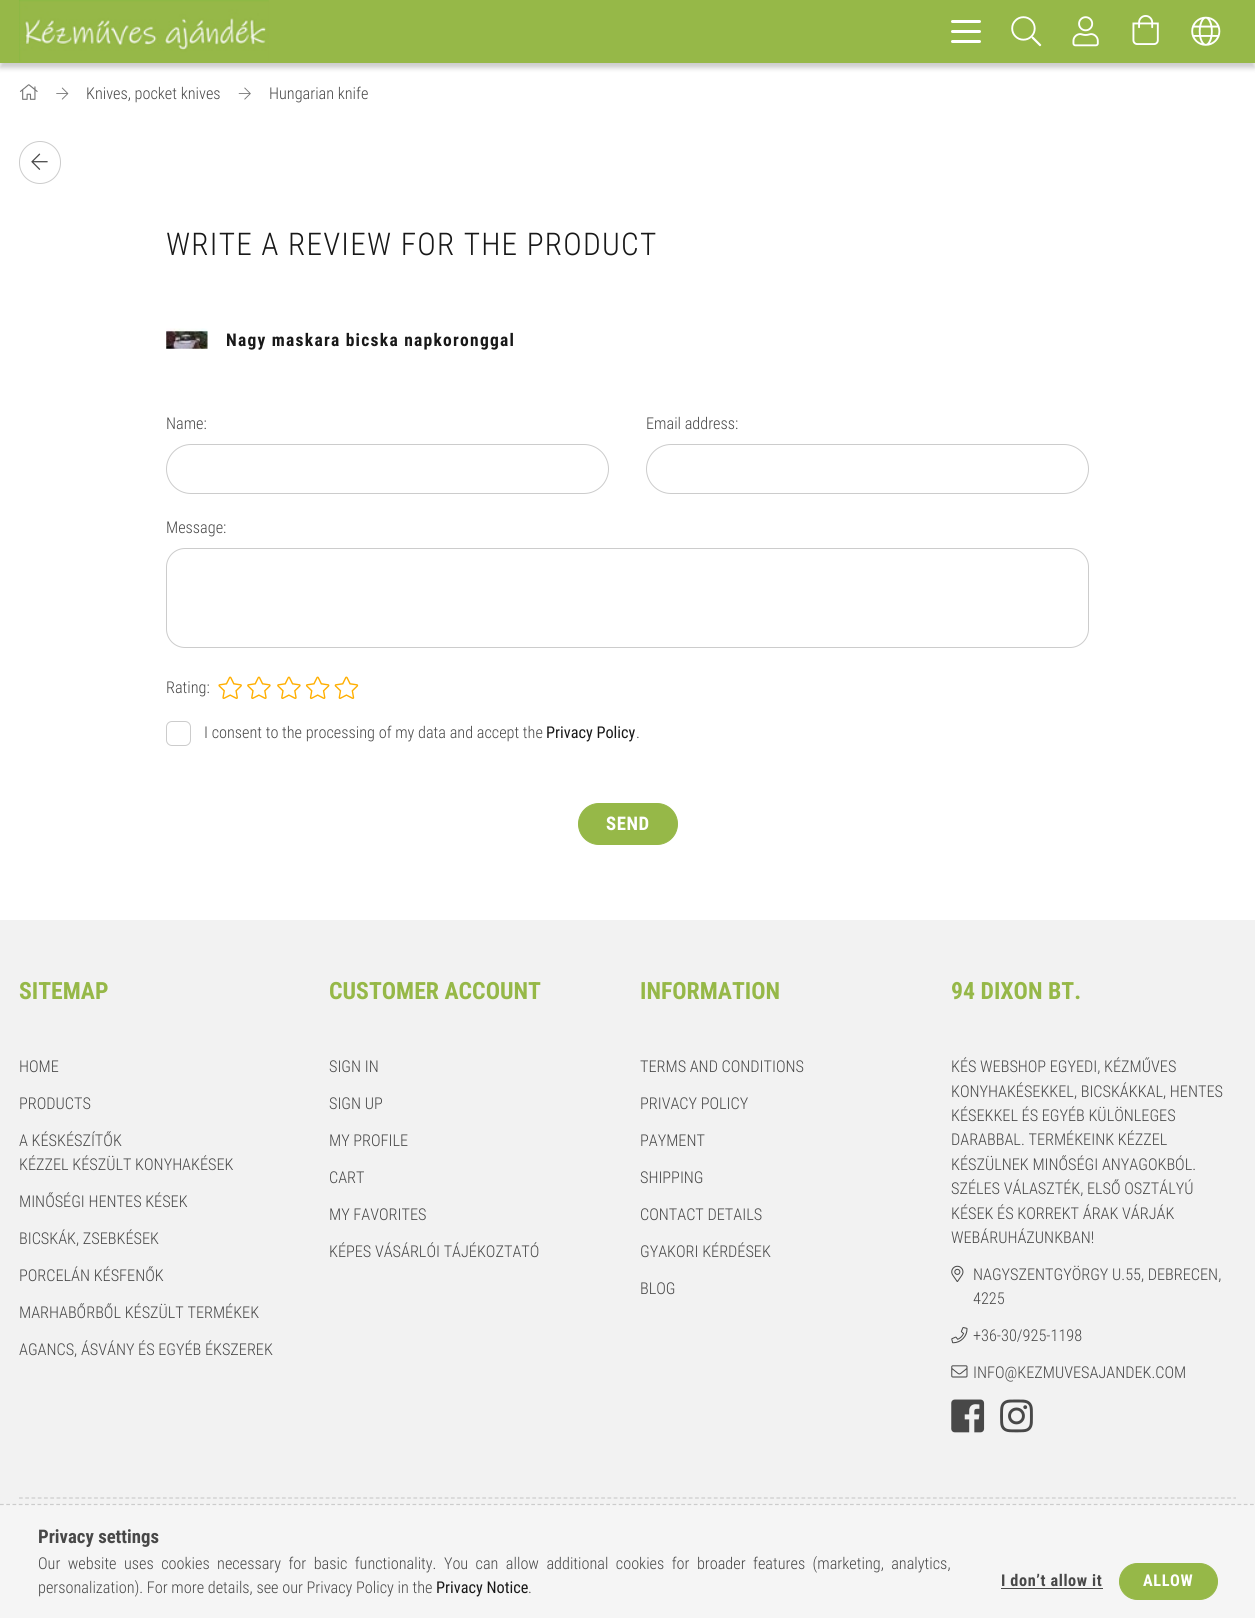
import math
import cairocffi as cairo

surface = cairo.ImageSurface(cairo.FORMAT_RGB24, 1255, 1618)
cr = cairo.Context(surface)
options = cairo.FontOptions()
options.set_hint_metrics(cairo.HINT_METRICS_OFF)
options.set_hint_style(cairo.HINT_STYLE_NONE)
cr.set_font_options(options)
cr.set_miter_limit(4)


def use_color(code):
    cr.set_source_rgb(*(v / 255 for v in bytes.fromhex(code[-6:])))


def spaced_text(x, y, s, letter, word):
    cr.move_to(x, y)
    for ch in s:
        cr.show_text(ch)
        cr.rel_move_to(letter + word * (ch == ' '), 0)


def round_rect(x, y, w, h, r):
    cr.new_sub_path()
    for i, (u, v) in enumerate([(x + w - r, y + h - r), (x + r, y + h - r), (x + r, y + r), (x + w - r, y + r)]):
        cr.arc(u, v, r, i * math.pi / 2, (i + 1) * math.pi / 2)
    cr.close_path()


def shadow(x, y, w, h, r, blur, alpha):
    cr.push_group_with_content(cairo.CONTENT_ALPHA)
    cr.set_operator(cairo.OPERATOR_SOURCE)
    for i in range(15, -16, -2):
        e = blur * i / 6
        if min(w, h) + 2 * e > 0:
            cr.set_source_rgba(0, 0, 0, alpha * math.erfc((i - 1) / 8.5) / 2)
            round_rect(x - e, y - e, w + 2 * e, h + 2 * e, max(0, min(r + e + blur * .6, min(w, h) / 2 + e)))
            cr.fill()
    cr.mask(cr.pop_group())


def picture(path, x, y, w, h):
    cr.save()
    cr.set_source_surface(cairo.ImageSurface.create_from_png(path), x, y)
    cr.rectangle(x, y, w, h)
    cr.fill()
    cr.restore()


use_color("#ffffff")
cr.paint()
use_color("#000000")
shadow(0, 5, 1255, 63, 0, 2.5, 0.2)
use_color("#96b848")
cr.rectangle(0, 0, 1255, 63)
cr.fill()
picture("img1.png", 19, 0, 250, 62)
use_color("#ffffff")
round_rect(951, 20, 30, 3, 1.5)
cr.fill()
round_rect(951, 30, 30, 3, 1.5)
cr.fill()
round_rect(951, 40, 30, 3, 1.5)
cr.fill()
picture("img2.png", 1011, 16, 31, 31)
picture("img3.png", 1072, 16, 27, 31)
picture("img4.png", 1132, 15, 27, 30)
picture("img5.png", 1191, 16, 30, 30)
picture("img6.png", 19, 84, 19, 16)
picture("img7.png", 56, 87, 13, 13)
cr.select_font_face("Roboto Condensed Light")
cr.set_font_size(16.25)
use_color("#484848")
cr.move_to(86, 99)
cr.show_text("Knives, pocket knives")
picture("img8.png", 238, 87, 13, 13)
cr.move_to(269, 99)
cr.show_text("Hungarian knife")
round_rect(19.5, 141.5, 41, 42, 20.5)
use_color("#cccccc")
cr.set_line_width(1)
cr.stroke()
picture("img9.png", 31, 153, 17, 17)
cr.set_font_size(31.25)
use_color("#181818")
spaced_text(166, 255, "WRITE A REVIEW FOR THE PRODUCT", 1.25, 0)
picture("img10.png", 166, 328, 42, 22)
cr.select_font_face("Roboto Condensed", cairo.FONT_SLANT_NORMAL, cairo.FONT_WEIGHT_BOLD)
cr.set_font_size(17.5)
spaced_text(226, 346, "Nagy maskara bicska napkoronggal", 1.25, 0)
cr.select_font_face("Roboto Condensed Light")
cr.set_font_size(16.25)
use_color("#484848")
cr.move_to(166, 429)
cr.show_text("Name:")
round_rect(166.5, 444.5, 442, 49, 24.5)
use_color("#cccccc")
cr.stroke()
use_color("#484848")
cr.move_to(646, 429)
cr.show_text("Email address:")
round_rect(646.5, 444.5, 442, 49, 24.5)
use_color("#cccccc")
cr.stroke()
use_color("#484848")
cr.move_to(166, 533)
cr.show_text("Message:")
round_rect(166.5, 548.5, 922, 99, 18.5)
use_color("#cccccc")
cr.stroke()
use_color("#484848")
cr.move_to(166, 693)
cr.show_text("Rating:")
picture("img11.png", 218, 676, 24, 23)
picture("img12.png", 247, 676, 24, 23)
picture("img12.png", 277, 676, 24, 23)
picture("img13.png", 305, 676, 25, 23)
picture("img14.png", 334, 676, 25, 23)
round_rect(166.5, 721.5, 24, 24, 5.5)
use_color("#cccccc")
cr.stroke()
use_color("#484848")
cr.move_to(204, 738)
cr.show_text("I consent to the processing of my data and accept the")
cr.select_font_face("Roboto Condensed")
use_color("#181818")
cr.move_to(546, 738)
cr.show_text("Privacy Policy")
cr.select_font_face("Roboto Condensed Light")
use_color("#484848")
cr.move_to(636, 738)
cr.show_text(".")
use_color("#96b848")
round_rect(578.5, 803.5, 99, 41, 20.5)
cr.fill_preserve()
cr.stroke()
cr.select_font_face("Roboto Condensed", cairo.FONT_SLANT_NORMAL, cairo.FONT_WEIGHT_BOLD)
cr.set_font_size(18.75)
use_color("#ffffff")
spaced_text(606, 830, "SEND", 0.6, 0)
use_color("#f2f2f2")
cr.rectangle(0, 920, 1255, 584)
cr.fill()
cr.set_font_size(23.75)
use_color("#96b848")
cr.move_to(19, 999)
cr.show_text("SITEMAP")
cr.select_font_face("Roboto Condensed Light")
cr.set_font_size(16.25)
use_color("#484848")
cr.move_to(19, 1072)
cr.show_text("HOME")
cr.move_to(19, 1109)
cr.show_text("PRODUCTS")
cr.move_to(19, 1146)
cr.show_text("A KÉSKÉSZÍTŐK")
cr.move_to(19, 1170)
cr.show_text("KÉZZEL KÉSZÜLT KONYHAKÉSEK")
cr.move_to(19, 1207)
cr.show_text("MINŐSÉGI HENTES KÉSEK")
cr.move_to(19, 1244)
cr.show_text("BICSKÁK, ZSEBKÉSEK")
cr.move_to(19, 1281)
cr.show_text("PORCELÁN KÉSFENŐK")
cr.move_to(19, 1318)
cr.show_text("MARHABŐRBŐL KÉSZÜLT TERMÉKEK")
cr.move_to(19, 1355)
cr.show_text("AGANCS, ÁSVÁNY ÉS EGYÉB ÉKSZEREK")
cr.select_font_face("Roboto Condensed", cairo.FONT_SLANT_NORMAL, cairo.FONT_WEIGHT_BOLD)
cr.set_font_size(23.75)
use_color("#96b848")
cr.move_to(329, 999)
cr.show_text("CUSTOMER ACCOUNT")
cr.select_font_face("Roboto Condensed Light")
cr.set_font_size(16.25)
use_color("#484848")
cr.move_to(329, 1072)
cr.show_text("SIGN IN")
cr.move_to(329, 1109)
cr.show_text("SIGN UP")
cr.move_to(329, 1146)
cr.show_text("MY PROFILE")
cr.move_to(329, 1183)
cr.show_text("CART")
cr.move_to(329, 1220)
cr.show_text("MY FAVORITES")
cr.move_to(329, 1257)
cr.show_text("KÉPES VÁSÁRLÓI TÁJÉKOZTATÓ")
cr.select_font_face("Roboto Condensed", cairo.FONT_SLANT_NORMAL, cairo.FONT_WEIGHT_BOLD)
cr.set_font_size(23.75)
use_color("#96b848")
cr.move_to(640, 999)
cr.show_text("INFORMATION")
cr.select_font_face("Roboto Condensed Light")
cr.set_font_size(16.25)
use_color("#484848")
cr.move_to(640, 1072)
cr.show_text("TERMS AND CONDITIONS")
cr.move_to(640, 1109)
cr.show_text("PRIVACY POLICY")
cr.move_to(640, 1146)
cr.show_text("PAYMENT")
cr.move_to(640, 1183)
cr.show_text("SHIPPING")
cr.move_to(640, 1220)
cr.show_text("CONTACT DETAILS")
cr.move_to(640, 1257)
cr.show_text("GYAKORI KÉRDÉSEK")
cr.move_to(640, 1294)
cr.show_text("BLOG")
cr.select_font_face("Roboto Condensed", cairo.FONT_SLANT_NORMAL, cairo.FONT_WEIGHT_BOLD)
cr.set_font_size(23.75)
use_color("#96b848")
cr.move_to(951, 999)
cr.show_text("94 DIXON BT.")
cr.select_font_face("Roboto Condensed Light")
cr.set_font_size(16.25)
use_color("#484848")
cr.move_to(951, 1072)
cr.show_text("KÉS WEBSHOP EGYEDI, KÉZMŰVES")
cr.move_to(951, 1097)
cr.show_text("KONYHAKÉSEKKEL, BICSKÁKKAL, HENTES")
cr.move_to(951, 1121)
cr.show_text("KÉSEKKEL ÉS EGYÉB KÜLÖNLEGES")
cr.move_to(951, 1145)
cr.show_text("DARABBAL. TERMÉKEINK KÉZZEL")
cr.move_to(951, 1170)
cr.show_text("KÉSZÜLNEK MINŐSÉGI ANYAGOKBÓL.")
cr.move_to(951, 1194)
cr.show_text("SZÉLES VÁLASZTÉK, ELSŐ OSZTÁLYÚ")
cr.move_to(951, 1219)
cr.show_text("KÉSEK ÉS KORREKT ÁRAK VÁRJÁK")
cr.move_to(951, 1243)
cr.show_text("WEBÁRUHÁZUNKBAN!")
picture("img15.png", 951, 1265, 13, 17)
cr.move_to(973, 1280)
cr.show_text("NAGYSZENTGYÖRGY U.55, DEBRECEN,")
cr.move_to(973, 1304)
cr.show_text("4225")
picture("img16.png", 951, 1327, 17, 17)
cr.move_to(973, 1341)
cr.show_text("+36-30/925-1198")
picture("img17.png", 951, 1365, 17, 13)
cr.move_to(973, 1378)
cr.show_text("INFO@KEZMUVESAJANDEK.COM")
picture("img18.png", 951, 1399, 34, 34)
picture("img19.png", 1000, 1399, 33, 34)
cr.new_path()
cr.move_to(19, 1498)
cr.line_to(1236, 1498)
use_color("#cccccc")
cr.set_line_width(1.2)
cr.set_dash([3.75, 2.51])
cr.stroke()
use_color("#f5f5f5")
cr.rectangle(0, 1504, 1255, 114)
cr.fill()
cr.new_path()
cr.move_to(0, 1504.5)
cr.line_to(1255, 1504.5)
use_color("#cccccc")
cr.set_dash([3.75, 2.5])
cr.stroke()
cr.select_font_face("Roboto Condensed", cairo.FONT_SLANT_NORMAL, cairo.FONT_WEIGHT_BOLD)
cr.set_font_size(18.75)
use_color("#484848")
cr.move_to(38, 1543)
cr.show_text("Privacy settings")
cr.select_font_face("Roboto Condensed Light")
cr.set_font_size(16.25)
spaced_text(38, 1569, "Our website uses cookies necessary for basic functionality. You can allow additional cookies for broader features (marketing, analytics,", 0, 3.75)
cr.move_to(38, 1593)
cr.show_text("personalization). For more details, see our Privacy Policy in the")
cr.select_font_face("Roboto Condensed")
use_color("#181818")
cr.move_to(436, 1593)
cr.show_text("Privacy Notice")
cr.select_font_face("Roboto Condensed Light")
use_color("#484848")
cr.move_to(528, 1593)
cr.show_text(".")
cr.select_font_face("Roboto Condensed", cairo.FONT_SLANT_NORMAL, cairo.FONT_WEIGHT_BOLD)
spaced_text(1001, 1586, "I don’t allow it", 0.6, 0)
cr.rectangle(1001, 1588, 102, 1)
cr.fill()
use_color("#96b848")
round_rect(1119.5, 1563.5, 98, 36, 18)
cr.fill_preserve()
cr.set_line_width(1)
cr.set_dash([])
cr.stroke()
use_color("#ffffff")
spaced_text(1143, 1586, "ALLOW", 0.6, 0)
surface.write_to_png("result.png")
